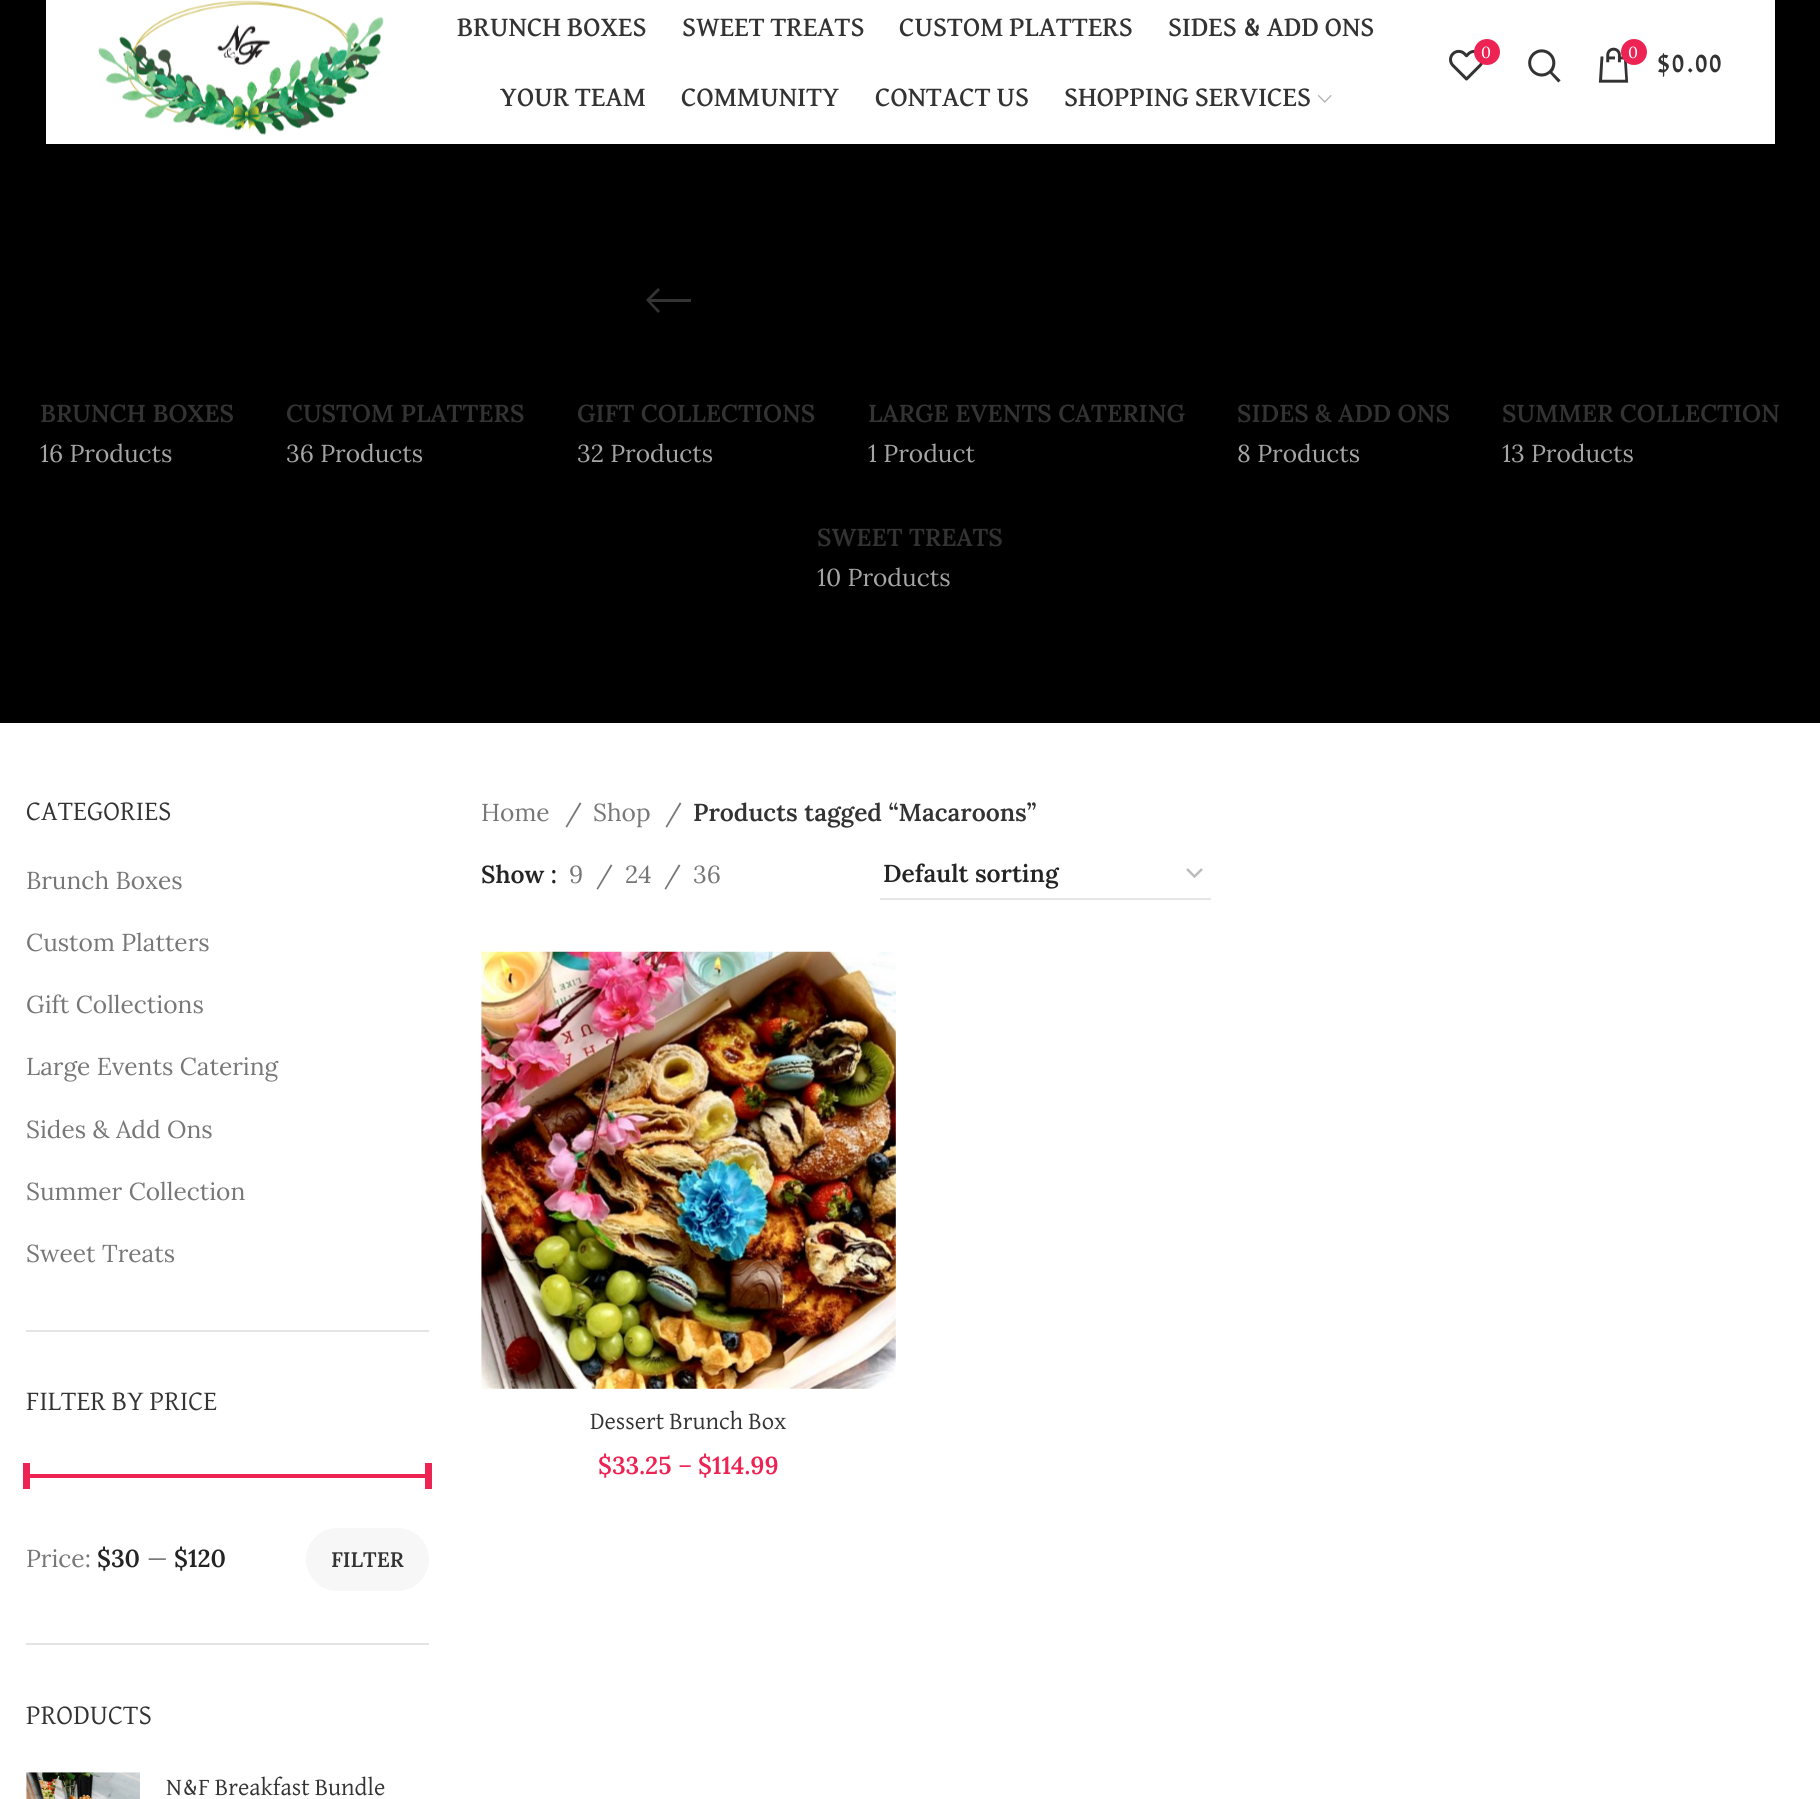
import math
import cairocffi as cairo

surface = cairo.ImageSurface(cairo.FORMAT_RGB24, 1820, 1799)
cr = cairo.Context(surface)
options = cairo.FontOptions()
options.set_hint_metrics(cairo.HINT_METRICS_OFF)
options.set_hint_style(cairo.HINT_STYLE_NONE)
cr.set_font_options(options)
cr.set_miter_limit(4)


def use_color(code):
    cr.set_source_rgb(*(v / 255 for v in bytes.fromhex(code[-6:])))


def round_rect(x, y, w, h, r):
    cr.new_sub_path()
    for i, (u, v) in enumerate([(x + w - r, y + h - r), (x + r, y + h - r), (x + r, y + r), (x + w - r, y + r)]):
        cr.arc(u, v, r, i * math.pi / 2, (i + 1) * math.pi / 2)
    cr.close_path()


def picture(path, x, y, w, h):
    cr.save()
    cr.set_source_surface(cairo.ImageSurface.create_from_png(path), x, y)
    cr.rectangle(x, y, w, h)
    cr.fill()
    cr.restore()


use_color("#ffffff")
cr.paint()
use_color("#000000")
cr.rectangle(0, 0, 1820, 723)
cr.fill()
use_color("#ffffff")
cr.rectangle(46, 0, 1729, 144)
cr.fill()
picture("img1.png", 98, 0, 286, 135)
cr.select_font_face("David Libre Medium")
cr.set_font_size(28)
use_color("#333333")
cr.move_to(457, 36)
cr.show_text("BRUNCH BOXES")
cr.move_to(682, 36)
cr.show_text("SWEET TREATS")
cr.move_to(899, 36)
cr.show_text("CUSTOM PLATTERS")
cr.move_to(1168, 36)
cr.show_text("SIDES & ADD ONS")
cr.move_to(500, 106)
cr.show_text("YOUR TEAM")
cr.move_to(681, 106)
cr.show_text("COMMUNITY")
cr.move_to(875, 106)
cr.show_text("CONTACT US")
cr.move_to(1064, 106)
cr.show_text("SHOPPING SERVICES")
picture("img2.png", 1317, 95, 15, 8)
picture("img3.png", 1449, 49, 34, 32)
use_color("#ed2353")
cr.arc(1487, 52, 13, 0, 2 * math.pi)
cr.fill()
cr.select_font_face("Lora")
cr.set_font_size(16)
use_color("#ffffff")
cr.move_to(1481, 58)
cr.show_text("0")
picture("img4.png", 1528, 49, 33, 34)
picture("img5.png", 1598, 47, 31, 36)
use_color("#ed2353")
cr.arc(1634, 52, 13, 0, 2 * math.pi)
cr.fill()
use_color("#ffffff")
cr.move_to(1628, 58)
cr.show_text("0")
cr.select_font_face("David Libre Medium")
cr.set_font_size(28)
use_color("#333333")
cr.move_to(1657, 72)
cr.show_text("$0.00")
cr.new_path()
cr.move_to(691, 299)
cr.line_to(691, 302)
cr.line_to(651, 302)
cr.line_to(660, 311)
cr.line_to(658, 313)
cr.line_to(646, 300)
cr.line_to(658, 288)
cr.line_to(660, 290)
cr.line_to(651, 299)
cr.close_path()
cr.fill()
cr.select_font_face("Lora SemiBold")
cr.set_font_size(24.5)
cr.move_to(40, 422)
cr.show_text("BRUNCH BOXES")
cr.select_font_face("Lora")
use_color("#a5a5a5")
cr.move_to(40, 462)
cr.show_text("16 Products")
cr.select_font_face("Lora SemiBold")
use_color("#333333")
cr.move_to(286, 422)
cr.show_text("CUSTOM PLATTERS")
cr.select_font_face("Lora")
use_color("#a5a5a5")
cr.move_to(286, 462)
cr.show_text("36 Products")
cr.select_font_face("Lora SemiBold")
use_color("#333333")
cr.move_to(577, 422)
cr.show_text("GIFT COLLECTIONS")
cr.select_font_face("Lora")
use_color("#a5a5a5")
cr.move_to(577, 462)
cr.show_text("32 Products")
cr.select_font_face("Lora SemiBold")
use_color("#333333")
cr.move_to(868, 422)
cr.show_text("LARGE EVENTS CATERING")
cr.select_font_face("Lora")
use_color("#a5a5a5")
cr.move_to(868, 462)
cr.show_text("1 Product")
cr.select_font_face("Lora SemiBold")
use_color("#333333")
cr.move_to(1237, 422)
cr.show_text("SIDES & ADD ONS")
cr.select_font_face("Lora")
use_color("#a5a5a5")
cr.move_to(1237, 462)
cr.show_text("8 Products")
cr.select_font_face("Lora SemiBold")
use_color("#333333")
cr.move_to(1502, 422)
cr.show_text("SUMMER COLLECTION")
cr.select_font_face("Lora")
use_color("#a5a5a5")
cr.move_to(1502, 462)
cr.show_text("13 Products")
cr.select_font_face("Lora SemiBold")
use_color("#333333")
cr.move_to(817, 546)
cr.show_text("SWEET TREATS")
cr.select_font_face("Lora")
use_color("#a5a5a5")
cr.move_to(817, 586)
cr.show_text("10 Products")
use_color("#e4e4e4")
cr.rectangle(26, 1330, 403, 2)
cr.fill()
cr.select_font_face("David Libre")
cr.set_font_size(28)
use_color("#333333")
cr.move_to(26, 820)
cr.show_text("CATEGORIES")
cr.select_font_face("Lora")
cr.set_font_size(24.5)
use_color("#777777")
cr.move_to(26, 889)
cr.show_text("Brunch Boxes")
cr.move_to(26, 951)
cr.show_text("Custom Platters")
cr.move_to(26, 1013)
cr.show_text("Gift Collections")
cr.move_to(26, 1075)
cr.show_text("Large Events Catering")
cr.move_to(26, 1138)
cr.show_text("Sides & Add Ons")
cr.move_to(26, 1200)
cr.show_text("Summer Collection")
cr.move_to(26, 1262)
cr.show_text("Sweet Treats")
use_color("#e4e4e4")
cr.rectangle(26, 1643, 403, 2)
cr.fill()
cr.select_font_face("David Libre")
cr.set_font_size(28)
use_color("#333333")
cr.move_to(26, 1410)
cr.show_text("FILTER BY PRICE")
use_color("#ed2353")
cr.rectangle(26, 1474, 403, 4)
cr.fill()
cr.rectangle(23, 1463, 7, 26)
cr.fill()
cr.rectangle(425, 1463, 7, 26)
cr.fill()
cr.select_font_face("Lora")
cr.set_font_size(24.5)
use_color("#777777")
cr.move_to(26, 1567)
cr.show_text("Price:")
cr.select_font_face("Lora SemiBold")
use_color("#242424")
cr.move_to(97, 1567)
cr.show_text("$30")
cr.select_font_face("Lora")
use_color("#777777")
cr.move_to(147, 1567)
cr.show_text("—")
cr.select_font_face("Lora SemiBold")
use_color("#242424")
cr.move_to(174, 1567)
cr.show_text("$120")
use_color("#f7f7f7")
round_rect(306, 1528, 123, 63, 31.5)
cr.fill()
cr.set_font_size(21)
use_color("#333333")
cr.move_to(331, 1567)
cr.show_text("FILTER")
cr.select_font_face("David Libre")
cr.set_font_size(28)
cr.move_to(26, 1724)
cr.show_text("PRODUCTS")
picture("img6.png", 26, 1772, 114, 27)
cr.set_font_size(24.5)
cr.move_to(166, 1795)
cr.show_text("N&F Breakfast Bundle")
cr.select_font_face("Lora")
use_color("#777777")
cr.move_to(481, 821)
cr.show_text("Home")
cr.move_to(565, 821)
cr.show_text("/")
cr.move_to(593, 821)
cr.show_text("Shop")
cr.move_to(665, 821)
cr.show_text("/")
cr.select_font_face("Lora SemiBold")
use_color("#333333")
cr.move_to(693, 821)
cr.show_text("Products tagged “Macaroons”")
use_color("#242424")
cr.move_to(481, 883)
cr.show_text("Show :")
cr.select_font_face("Lora")
use_color("#777777")
cr.move_to(569, 883)
cr.show_text("9")
cr.move_to(596, 883)
cr.show_text("/")
cr.move_to(625, 883)
cr.show_text("24")
cr.move_to(664, 883)
cr.show_text("/")
cr.move_to(693, 883)
cr.show_text("36")
cr.new_path()
cr.move_to(1187, 869)
cr.line_to(1194.5, 876.5)
cr.line_to(1202, 869)
use_color("#bbbbbb")
cr.set_line_width(2.5)
cr.stroke()
use_color("#e6e6e6")
cr.rectangle(880, 898, 331, 2)
cr.fill()
cr.select_font_face("Lora SemiBold")
use_color("#242424")
cr.move_to(883, 882)
cr.show_text("Default sorting")
picture("img7.png", 481, 951, 415, 438)
cr.select_font_face("David Libre")
use_color("#333333")
cr.move_to(590, 1429)
cr.show_text("Dessert Brunch Box")
cr.select_font_face("Lora SemiBold")
use_color("#ed2353")
cr.move_to(598, 1474)
cr.show_text("$33.25")
cr.select_font_face("Lora")
cr.move_to(678, 1474)
cr.show_text("–")
cr.select_font_face("Lora SemiBold")
cr.move_to(698, 1474)
cr.show_text("$114.99")
surface.write_to_png("result.png")
